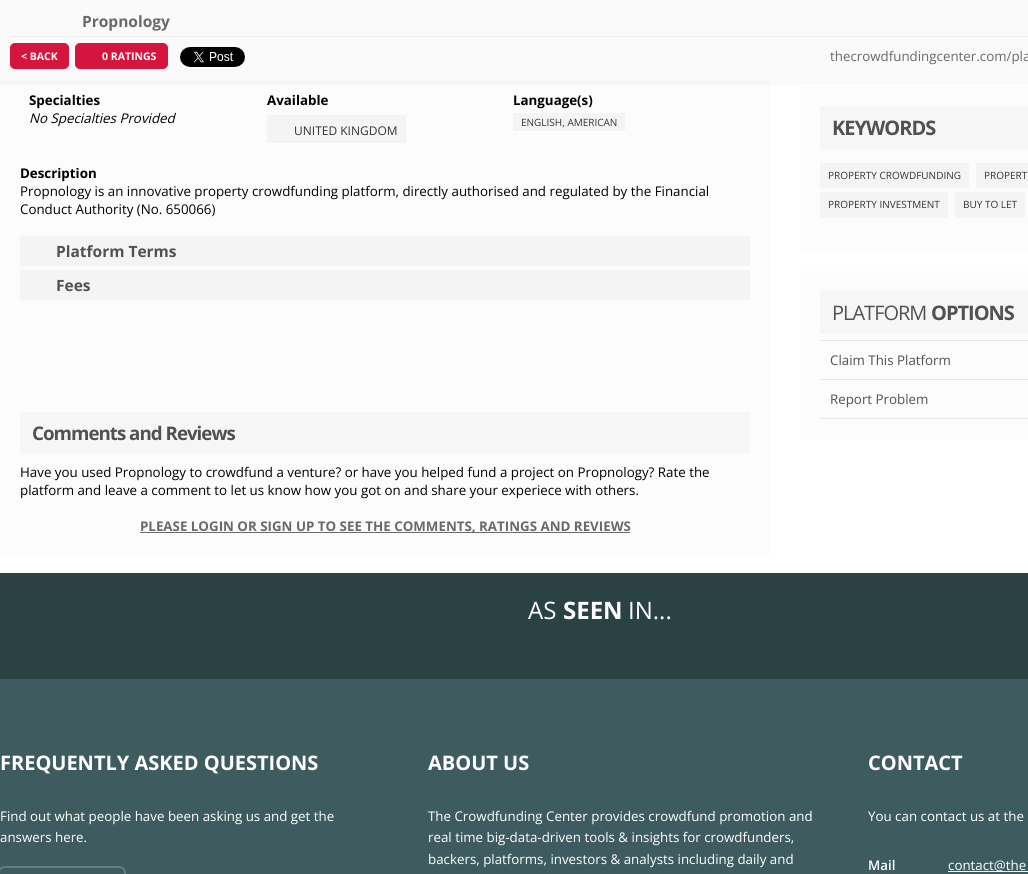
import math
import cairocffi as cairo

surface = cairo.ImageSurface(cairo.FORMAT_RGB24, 1028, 874)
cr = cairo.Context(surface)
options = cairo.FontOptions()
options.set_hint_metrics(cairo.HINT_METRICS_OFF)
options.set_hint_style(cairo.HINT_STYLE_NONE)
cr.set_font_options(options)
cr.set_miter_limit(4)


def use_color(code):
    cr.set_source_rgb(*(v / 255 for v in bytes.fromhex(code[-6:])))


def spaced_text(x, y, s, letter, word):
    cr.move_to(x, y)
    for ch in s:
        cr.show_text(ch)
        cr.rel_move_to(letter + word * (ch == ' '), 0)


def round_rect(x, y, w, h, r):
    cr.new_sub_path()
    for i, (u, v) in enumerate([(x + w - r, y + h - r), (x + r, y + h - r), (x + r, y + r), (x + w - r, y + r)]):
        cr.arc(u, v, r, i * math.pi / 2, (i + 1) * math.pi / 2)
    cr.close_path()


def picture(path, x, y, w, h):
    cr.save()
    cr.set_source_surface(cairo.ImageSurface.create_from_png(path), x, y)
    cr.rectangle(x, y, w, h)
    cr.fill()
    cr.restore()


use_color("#3e5c5f")
cr.paint()
use_color("#ffffff")
cr.rectangle(0, 85, 1028, 488)
cr.fill()
use_color("#f9f9f9")
cr.rectangle(770, 81, 258, 4)
cr.fill()
use_color("#fafafa")
cr.rectangle(0, 0, 1028, 81)
cr.fill()
use_color("#eeeeee")
cr.rectangle(10, 36, 1018, 1)
cr.fill()
cr.select_font_face("Open Sans", cairo.FONT_SLANT_NORMAL, cairo.FONT_WEIGHT_BOLD)
cr.set_font_size(15.5)
use_color("#696969")
cr.move_to(82, 27)
cr.show_text("Propnology")
use_color("#d5153e")
round_rect(10.5, 43.5, 58, 25, 4.5)
cr.fill_preserve()
cr.set_line_width(1)
cr.stroke()
cr.set_font_size(10.5)
use_color("#ffffff")
cr.move_to(21, 60)
cr.show_text("< BACK")
use_color("#d5153e")
round_rect(75.5, 43.5, 92, 25, 4.5)
cr.fill_preserve()
cr.stroke()
use_color("#ffffff")
cr.move_to(102, 60)
cr.show_text("0 RATINGS")
picture("img1.png", 180, 47, 65, 20)
cr.select_font_face("Open Sans")
cr.set_font_size(13.33)
use_color("#696969")
cr.move_to(830, 61)
cr.show_text("thecrowdfundingcenter.com/pla")
use_color("#fcfcfc")
cr.rectangle(0, 85, 770, 470)
cr.fill()
use_color("#f6f6f6")
cr.rectangle(0, 81, 770, 4)
cr.fill()
cr.select_font_face("Open Sans", cairo.FONT_SLANT_NORMAL, cairo.FONT_WEIGHT_BOLD)
use_color("#000000")
cr.move_to(29, 105)
cr.show_text("Specialties")
cr.select_font_face("Open Sans", cairo.FONT_SLANT_ITALIC)
cr.move_to(29, 123)
cr.show_text("No Specialties Provided")
cr.select_font_face("Open Sans", cairo.FONT_SLANT_NORMAL, cairo.FONT_WEIGHT_BOLD)
cr.move_to(267, 105)
cr.show_text("Available")
use_color("#f4f4f4")
cr.rectangle(267, 115, 139, 28)
cr.fill()
cr.select_font_face("Open Sans")
cr.set_font_size(12)
use_color("#333333")
cr.move_to(294, 135)
cr.show_text("UNITED KINGDOM")
cr.select_font_face("Open Sans", cairo.FONT_SLANT_NORMAL, cairo.FONT_WEIGHT_BOLD)
cr.set_font_size(13.33)
use_color("#000000")
cr.move_to(513, 105)
cr.show_text("Language(s)")
use_color("#f4f4f4")
cr.rectangle(513, 113, 112, 18)
cr.fill()
cr.select_font_face("Open Sans")
cr.set_font_size(10)
use_color("#333333")
cr.move_to(521, 126)
cr.show_text("ENGLISH, AMERICAN")
cr.select_font_face("Open Sans", cairo.FONT_SLANT_NORMAL, cairo.FONT_WEIGHT_BOLD)
cr.set_font_size(13.33)
use_color("#000000")
cr.move_to(20, 178)
cr.show_text("Description")
cr.select_font_face("Open Sans")
cr.move_to(20, 196)
cr.show_text("Propnology is an innovative property crowdfunding platform, directly authorised and regulated by the Financial")
cr.move_to(20, 214)
cr.show_text("Conduct Authority (No. 650066)")
use_color("#f4f4f4")
cr.rectangle(20, 236, 730, 30)
cr.fill()
cr.select_font_face("Open Sans", cairo.FONT_SLANT_NORMAL, cairo.FONT_WEIGHT_BOLD)
cr.set_font_size(15.5)
use_color("#515151")
cr.move_to(56, 257)
cr.show_text("Platform Terms")
use_color("#f4f4f4")
cr.rectangle(20, 270, 730, 30)
cr.fill()
use_color("#515151")
cr.move_to(56, 291)
cr.show_text("Fees")
use_color("#f6f6f6")
cr.rectangle(20, 412, 730, 41)
cr.fill()
cr.set_font_size(18.75)
use_color("#515151")
spaced_text(32, 440, "Comments and Reviews", -1, 0)
cr.select_font_face("Open Sans")
cr.set_font_size(13.33)
use_color("#000000")
cr.move_to(20, 477)
cr.show_text("Have you used Propnology to crowdfund a venture? or have you helped fund a project on Propnology? Rate the")
cr.move_to(20, 495)
cr.show_text("platform and leave a comment to let us know how you got on and share your experiece with others.")
use_color("#696969")
cr.rectangle(140, 532, 490, 1)
cr.fill()
cr.select_font_face("Open Sans", cairo.FONT_SLANT_NORMAL, cairo.FONT_WEIGHT_BOLD)
cr.move_to(140, 531)
cr.show_text("PLEASE LOGIN OR SIGN UP TO SEE THE COMMENTS, RATINGS AND REVIEWS")
use_color("#fcfcfc")
cr.rectangle(800, 86, 228, 165)
cr.fill()
use_color("#f6f6f6")
cr.rectangle(820, 106, 208, 43)
cr.fill()
cr.set_font_size(20)
use_color("#515151")
spaced_text(832, 135, "KEYWORDS", -1, 0)
use_color("#f4f4f4")
cr.rectangle(820, 163, 149, 25)
cr.fill()
cr.select_font_face("Open Sans")
cr.set_font_size(10)
use_color("#333333")
cr.move_to(828, 179)
cr.show_text("PROPERTY CROWDFUNDING")
use_color("#f4f4f4")
cr.rectangle(976, 163, 52, 25)
cr.fill()
use_color("#333333")
cr.move_to(984, 179)
cr.show_text("PROPERT")
use_color("#f4f4f4")
cr.rectangle(820, 192, 128, 26)
cr.fill()
use_color("#333333")
cr.move_to(828, 208)
cr.show_text("PROPERTY INVESTMENT")
use_color("#f4f4f4")
cr.rectangle(955, 192, 70, 26)
cr.fill()
use_color("#333333")
cr.move_to(963, 208)
cr.show_text("BUY TO LET")
use_color("#fcfcfc")
cr.rectangle(800, 271, 228, 168)
cr.fill()
use_color("#f6f6f6")
cr.rectangle(820, 291, 208, 43)
cr.fill()
cr.set_font_size(20)
use_color("#515151")
spaced_text(832, 320, "PLATFORM", -1, 0)
cr.select_font_face("Open Sans", cairo.FONT_SLANT_NORMAL, cairo.FONT_WEIGHT_BOLD)
spaced_text(931, 320, "OPTIONS", -1, 0)
use_color("#e6e7dc")
cr.rectangle(820, 418, 208, 1)
cr.fill()
cr.rectangle(820, 340, 208, 1)
cr.fill()
cr.select_font_face("Open Sans")
cr.set_font_size(13.33)
use_color("#515151")
cr.move_to(830, 365)
cr.show_text("Claim This Platform")
use_color("#e6e7dc")
cr.rectangle(820, 379, 208, 1)
cr.fill()
use_color("#515151")
cr.move_to(830, 404)
cr.show_text("Report Problem")
use_color("#2b4244")
cr.rectangle(0, 573, 1028, 106)
cr.fill()
cr.set_font_size(24)
use_color("#ffffff")
cr.move_to(528, 619)
cr.show_text("AS")
cr.select_font_face("Open Sans", cairo.FONT_SLANT_NORMAL, cairo.FONT_WEIGHT_BOLD)
cr.move_to(563, 619)
cr.show_text("SEEN")
cr.select_font_face("Open Sans")
cr.move_to(628, 619)
cr.show_text("IN...")
cr.select_font_face("Open Sans", cairo.FONT_SLANT_NORMAL, cairo.FONT_WEIGHT_BOLD)
cr.set_font_size(20)
cr.move_to(0, 770)
cr.show_text("FREQUENTLY ASKED QUESTIONS")
cr.select_font_face("Open Sans")
cr.set_font_size(13.33)
cr.move_to(0, 821)
cr.show_text("Find out what people have been asking us and get the")
cr.move_to(0, 842)
cr.show_text("answers here.")
round_rect(-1, 867, 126, 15, 6)
use_color("#657d7f")
cr.set_line_width(2)
cr.stroke()
use_color("#3e5c5f")
round_rect(0.5, 868.5, 123, 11, 4.5)
cr.fill_preserve()
cr.set_line_width(1)
cr.stroke()
cr.select_font_face("Open Sans", cairo.FONT_SLANT_NORMAL, cairo.FONT_WEIGHT_BOLD)
cr.set_font_size(20)
use_color("#ffffff")
cr.move_to(428, 770)
cr.show_text("ABOUT US")
cr.select_font_face("Open Sans")
cr.set_font_size(13.33)
cr.move_to(428, 821)
cr.show_text("The Crowdfunding Center provides crowdfund promotion and")
cr.move_to(428, 842)
cr.show_text("real time big-data-driven tools & insights for crowdfunders,")
cr.move_to(428, 864)
cr.show_text("backers, platforms, investors & analysts including daily and")
cr.select_font_face("Open Sans", cairo.FONT_SLANT_NORMAL, cairo.FONT_WEIGHT_BOLD)
cr.set_font_size(20)
cr.move_to(868, 770)
cr.show_text("CONTACT")
cr.select_font_face("Open Sans")
cr.set_font_size(13.33)
cr.move_to(868, 821)
cr.show_text("You can contact us at the")
cr.select_font_face("Open Sans SemiBold")
cr.move_to(868, 870)
cr.show_text("Mail")
use_color("#fcfcfc")
cr.rectangle(948, 871, 80, 1)
cr.fill()
cr.select_font_face("Open Sans")
use_color("#ffffff")
cr.move_to(948, 870)
cr.show_text("contact@the")
surface.write_to_png("result.png")
